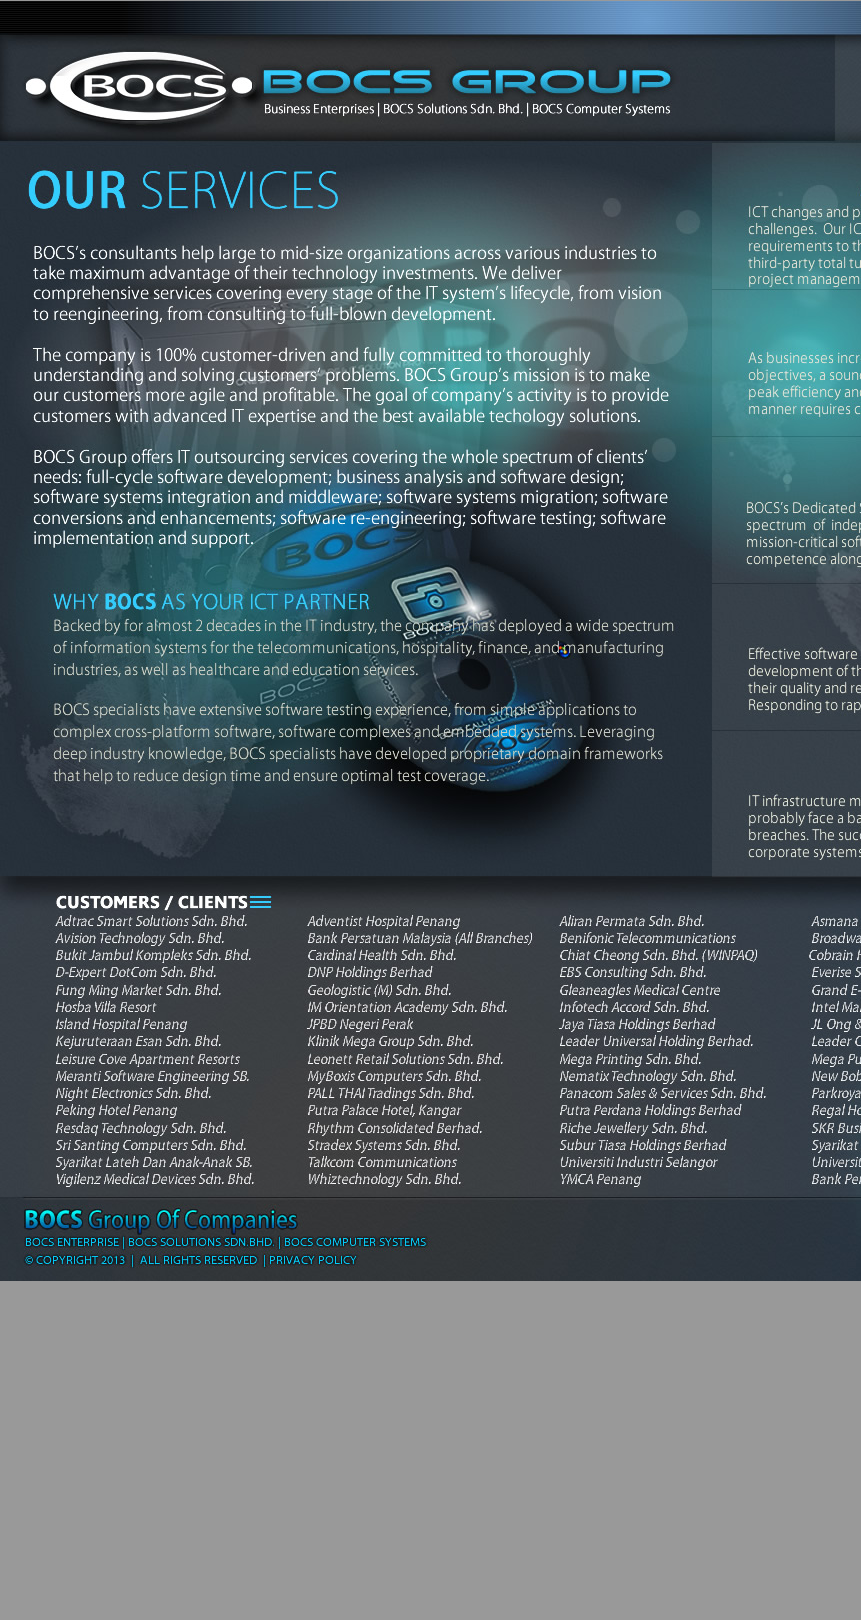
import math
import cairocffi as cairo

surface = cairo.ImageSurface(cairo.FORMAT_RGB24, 861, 1620)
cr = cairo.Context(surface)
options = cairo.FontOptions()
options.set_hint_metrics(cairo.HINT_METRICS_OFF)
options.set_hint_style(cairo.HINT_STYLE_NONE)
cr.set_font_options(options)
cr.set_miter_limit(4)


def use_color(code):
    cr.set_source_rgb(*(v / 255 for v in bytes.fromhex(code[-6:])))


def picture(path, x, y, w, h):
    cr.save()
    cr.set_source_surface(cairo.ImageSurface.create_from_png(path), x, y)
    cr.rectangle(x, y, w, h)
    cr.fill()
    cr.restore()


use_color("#999999")
cr.paint()
picture("img1.png", 0, 1, 861, 75)
picture("img2.png", 0, 76, 861, 1205)
surface.write_to_png("result.png")
